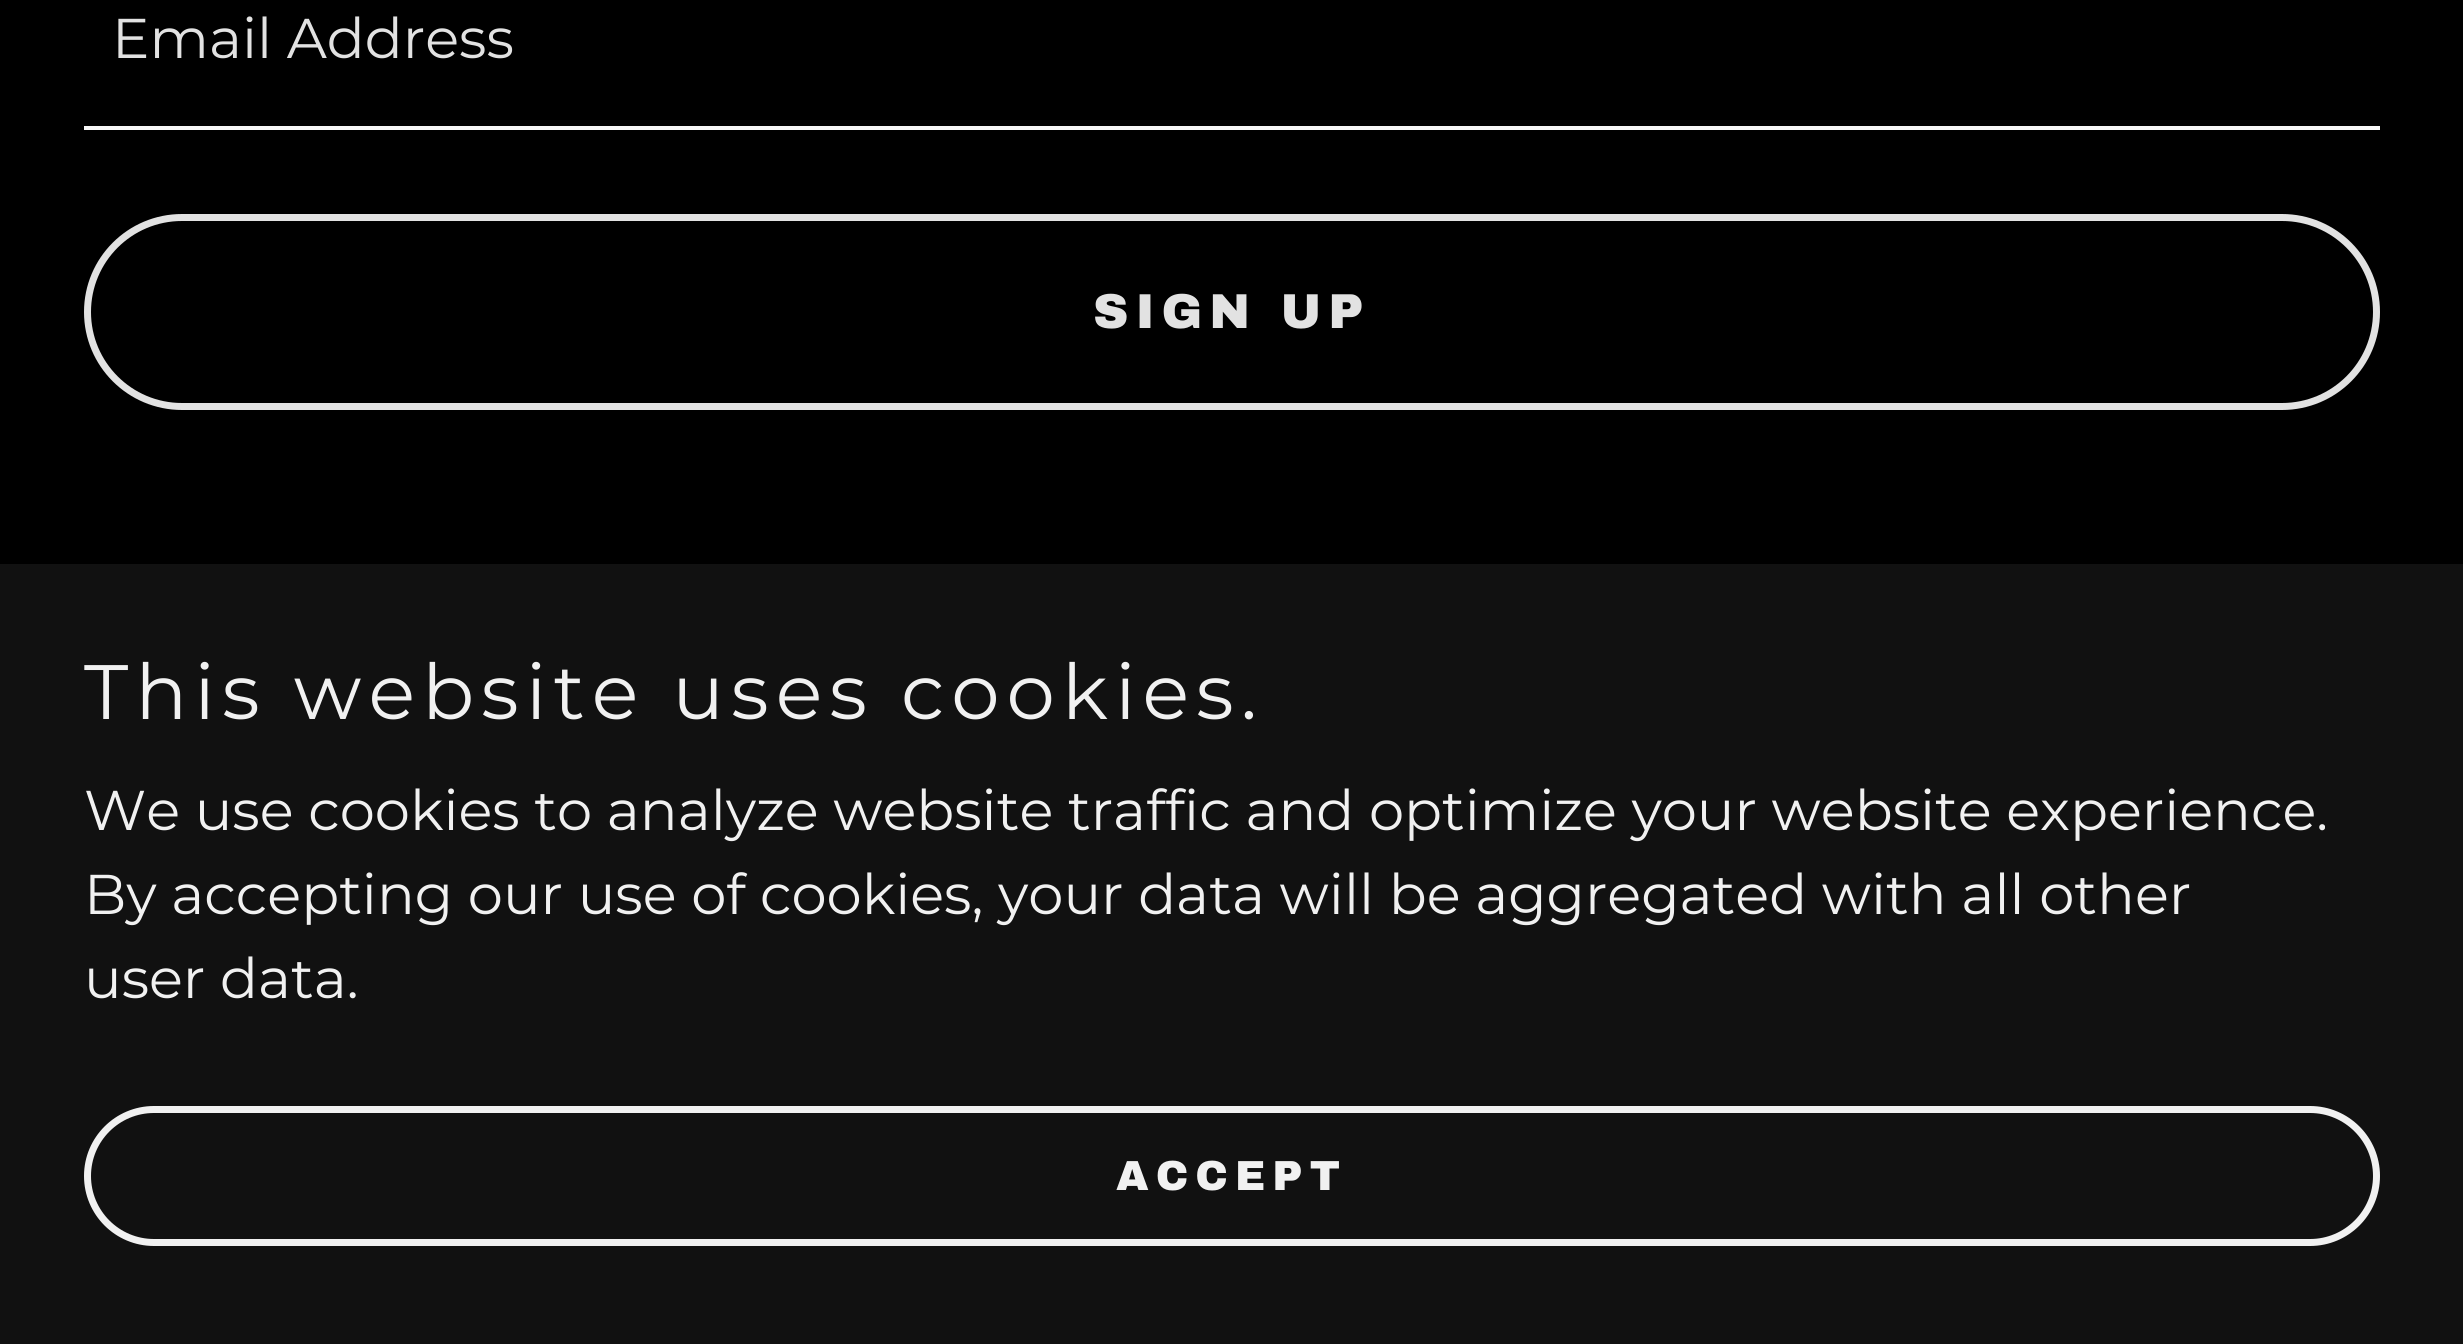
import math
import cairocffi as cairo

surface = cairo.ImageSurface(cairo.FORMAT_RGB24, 2463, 1344)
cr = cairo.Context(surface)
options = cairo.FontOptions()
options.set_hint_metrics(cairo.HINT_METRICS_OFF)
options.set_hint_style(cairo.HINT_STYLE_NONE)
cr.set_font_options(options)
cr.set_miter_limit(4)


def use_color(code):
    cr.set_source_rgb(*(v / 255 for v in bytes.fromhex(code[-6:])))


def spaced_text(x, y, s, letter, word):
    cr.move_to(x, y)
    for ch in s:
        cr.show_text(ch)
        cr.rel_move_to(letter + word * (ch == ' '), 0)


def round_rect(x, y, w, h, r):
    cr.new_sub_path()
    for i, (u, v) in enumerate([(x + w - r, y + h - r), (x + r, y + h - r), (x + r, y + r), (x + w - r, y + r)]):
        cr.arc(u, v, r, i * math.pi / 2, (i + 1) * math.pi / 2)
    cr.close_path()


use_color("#000000")
cr.paint()
cr.select_font_face("Montserrat")
cr.set_font_size(56)
use_color("#e2e2e2")
cr.move_to(112, 58)
cr.show_text("Email Address")
use_color("#f7f7f7")
cr.rectangle(84, 126, 2296, 4)
cr.fill()
round_rect(87.5, 217.5, 2289, 189, 94.5)
use_color("#e2e2e2")
cr.set_line_width(7)
cr.stroke()
cr.select_font_face("Archivo Black Black")
cr.set_font_size(49)
spaced_text(1093, 328, "SIGN UP", 7, 0)
use_color("#111111")
cr.rectangle(0, 564, 2463, 780)
cr.fill()
cr.select_font_face("Montserrat")
cr.set_font_size(77)
use_color("#f1f1f1")
spaced_text(84, 719, "This website uses cookies.", 7, 0)
cr.set_font_size(56)
cr.move_to(84, 830)
cr.show_text("We use cookies to analyze website traffic and optimize your website experience.")
cr.move_to(84, 914)
cr.show_text("By accepting our use of cookies, your data will be aggregated with all other")
cr.move_to(84, 998)
cr.show_text("user data.")
round_rect(87.5, 1109.5, 2289, 133, 66.5)
cr.stroke()
cr.select_font_face("Archivo Black Black")
cr.set_font_size(42)
spaced_text(1116, 1190, "ACCEPT", 7, 0)
surface.write_to_png("result.png")
